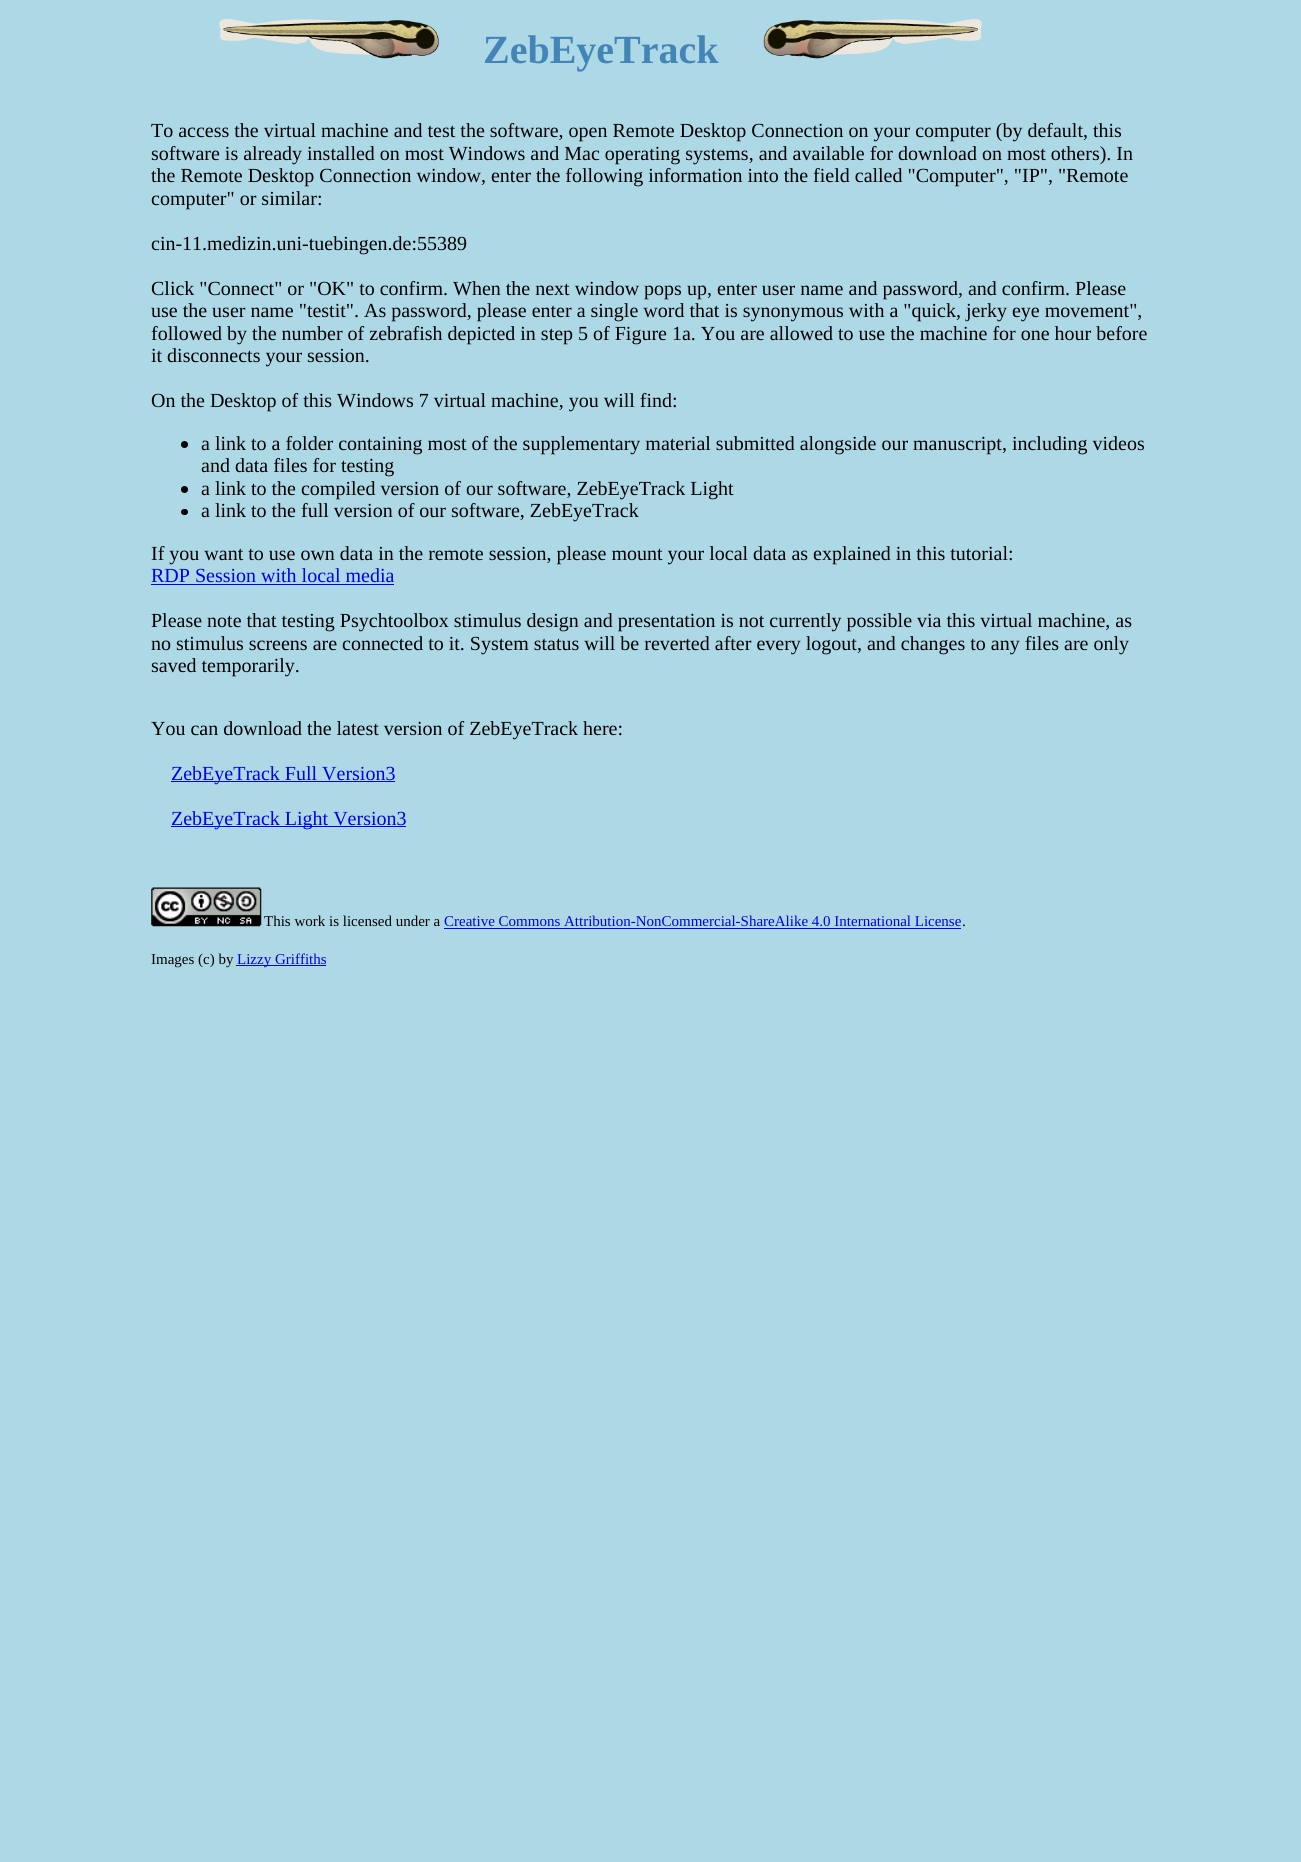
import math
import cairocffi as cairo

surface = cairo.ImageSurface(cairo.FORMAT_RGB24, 1301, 1862)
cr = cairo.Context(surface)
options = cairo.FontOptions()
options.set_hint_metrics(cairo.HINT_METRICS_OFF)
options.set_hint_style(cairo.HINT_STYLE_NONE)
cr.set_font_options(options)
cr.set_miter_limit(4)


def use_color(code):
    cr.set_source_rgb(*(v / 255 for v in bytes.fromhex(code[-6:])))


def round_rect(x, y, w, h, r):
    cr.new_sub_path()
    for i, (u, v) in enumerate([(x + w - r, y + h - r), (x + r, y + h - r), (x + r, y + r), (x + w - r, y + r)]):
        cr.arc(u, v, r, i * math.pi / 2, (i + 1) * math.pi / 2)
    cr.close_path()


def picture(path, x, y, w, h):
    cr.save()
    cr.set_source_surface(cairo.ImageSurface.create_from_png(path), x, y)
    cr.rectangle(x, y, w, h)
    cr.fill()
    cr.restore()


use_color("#add8e6")
cr.paint()
picture("img1.png", 219, 18, 220, 45)
cr.select_font_face("Liberation Serif", cairo.FONT_SLANT_NORMAL, cairo.FONT_WEIGHT_BOLD)
cr.set_font_size(40)
use_color("#4485b8")
cr.move_to(483, 63)
cr.show_text("ZebEyeTrack")
picture("img2.png", 763, 18, 219, 45)
cr.select_font_face("Liberation Serif")
cr.set_font_size(20)
use_color("#000000")
cr.move_to(151, 137)
cr.show_text("To access the virtual machine and test the software, open Remote Desktop Connection on your computer (by default, this")
cr.move_to(151, 160)
cr.show_text("software is already installed on most Windows and Mac operating systems, and available for download on most others). In")
cr.move_to(151, 182)
cr.show_text("the Remote Desktop Connection window, enter the following information into the field called \"Computer\", \"IP\", \"Remote")
cr.move_to(151, 205)
cr.show_text("computer\" or similar:")
cr.move_to(151, 250)
cr.show_text("cin-11.medizin.uni-tuebingen.de:55389")
cr.move_to(151, 295)
cr.show_text("Click \"Connect\" or \"OK\" to confirm. When the next window pops up, enter user name and password, and confirm. Please")
cr.move_to(151, 317)
cr.show_text("use the user name \"testit\". As password, please enter a single word that is synonymous with a \"quick, jerky eye movement\",")
cr.move_to(151, 340)
cr.show_text("followed by the number of zebrafish depicted in step 5 of Figure 1a. You are allowed to use the machine for one hour before")
cr.move_to(151, 362)
cr.show_text("it disconnects your session.")
cr.move_to(151, 407)
cr.show_text("On the Desktop of this Windows 7 virtual machine, you will find:")
cr.new_path()
cr.arc(184.5, 444.5, 3.5, 0, 2 * math.pi)
cr.fill()
cr.move_to(201, 450)
cr.show_text("a link to a folder containing most of the supplementary material submitted alongside our manuscript, including videos")
cr.move_to(201, 472)
cr.show_text("and data files for testing")
cr.new_path()
cr.arc(184.5, 489.5, 3.5, 0, 2 * math.pi)
cr.fill()
cr.move_to(201, 495)
cr.show_text("a link to the compiled version of our software, ZebEyeTrack Light")
round_rect(181, 509, 7, 6, 3)
cr.fill()
cr.move_to(201, 517)
cr.show_text("a link to the full version of our software, ZebEyeTrack")
cr.move_to(151, 560)
cr.show_text("If you want to use own data in the remote session, please mount your local data as explained in this tutorial:")
use_color("#0000ee")
cr.move_to(151, 582)
cr.show_text("RDP Session with local media")
cr.rectangle(151, 584, 243, 1)
cr.fill()
use_color("#000000")
cr.move_to(151, 627)
cr.show_text("Please note that testing Psychtoolbox stimulus design and presentation is not currently possible via this virtual machine, as")
cr.move_to(151, 650)
cr.show_text("no stimulus screens are connected to it. System status will be reverted after every logout, and changes to any files are only")
cr.move_to(151, 672)
cr.show_text("saved temporarily.")
cr.move_to(151, 735)
cr.show_text("You can download the latest version of ZebEyeTrack here:")
use_color("#0000ee")
cr.rectangle(171, 781, 224, 1)
cr.fill()
cr.move_to(171, 780)
cr.show_text("ZebEyeTrack Full Version3")
cr.rectangle(171, 826, 235, 1)
cr.fill()
cr.move_to(171, 825)
cr.show_text("ZebEyeTrack Light Version3")
picture("img3.png", 151, 887, 111, 40)
cr.set_font_size(15)
use_color("#000000")
cr.move_to(264, 926)
cr.show_text("This work is licensed under a")
use_color("#0000ee")
cr.move_to(444, 926)
cr.show_text("Creative Commons Attribution-NonCommercial-ShareAlike 4.0 International License")
cr.rectangle(444, 928, 517, 1)
cr.fill()
use_color("#000000")
cr.move_to(962, 926)
cr.show_text(".")
cr.move_to(151, 964)
cr.show_text("Images (c) by")
use_color("#0000ee")
cr.rectangle(236, 965, 90, 1)
cr.fill()
cr.move_to(237, 964)
cr.show_text("Lizzy Griffiths")
surface.write_to_png("result.png")
